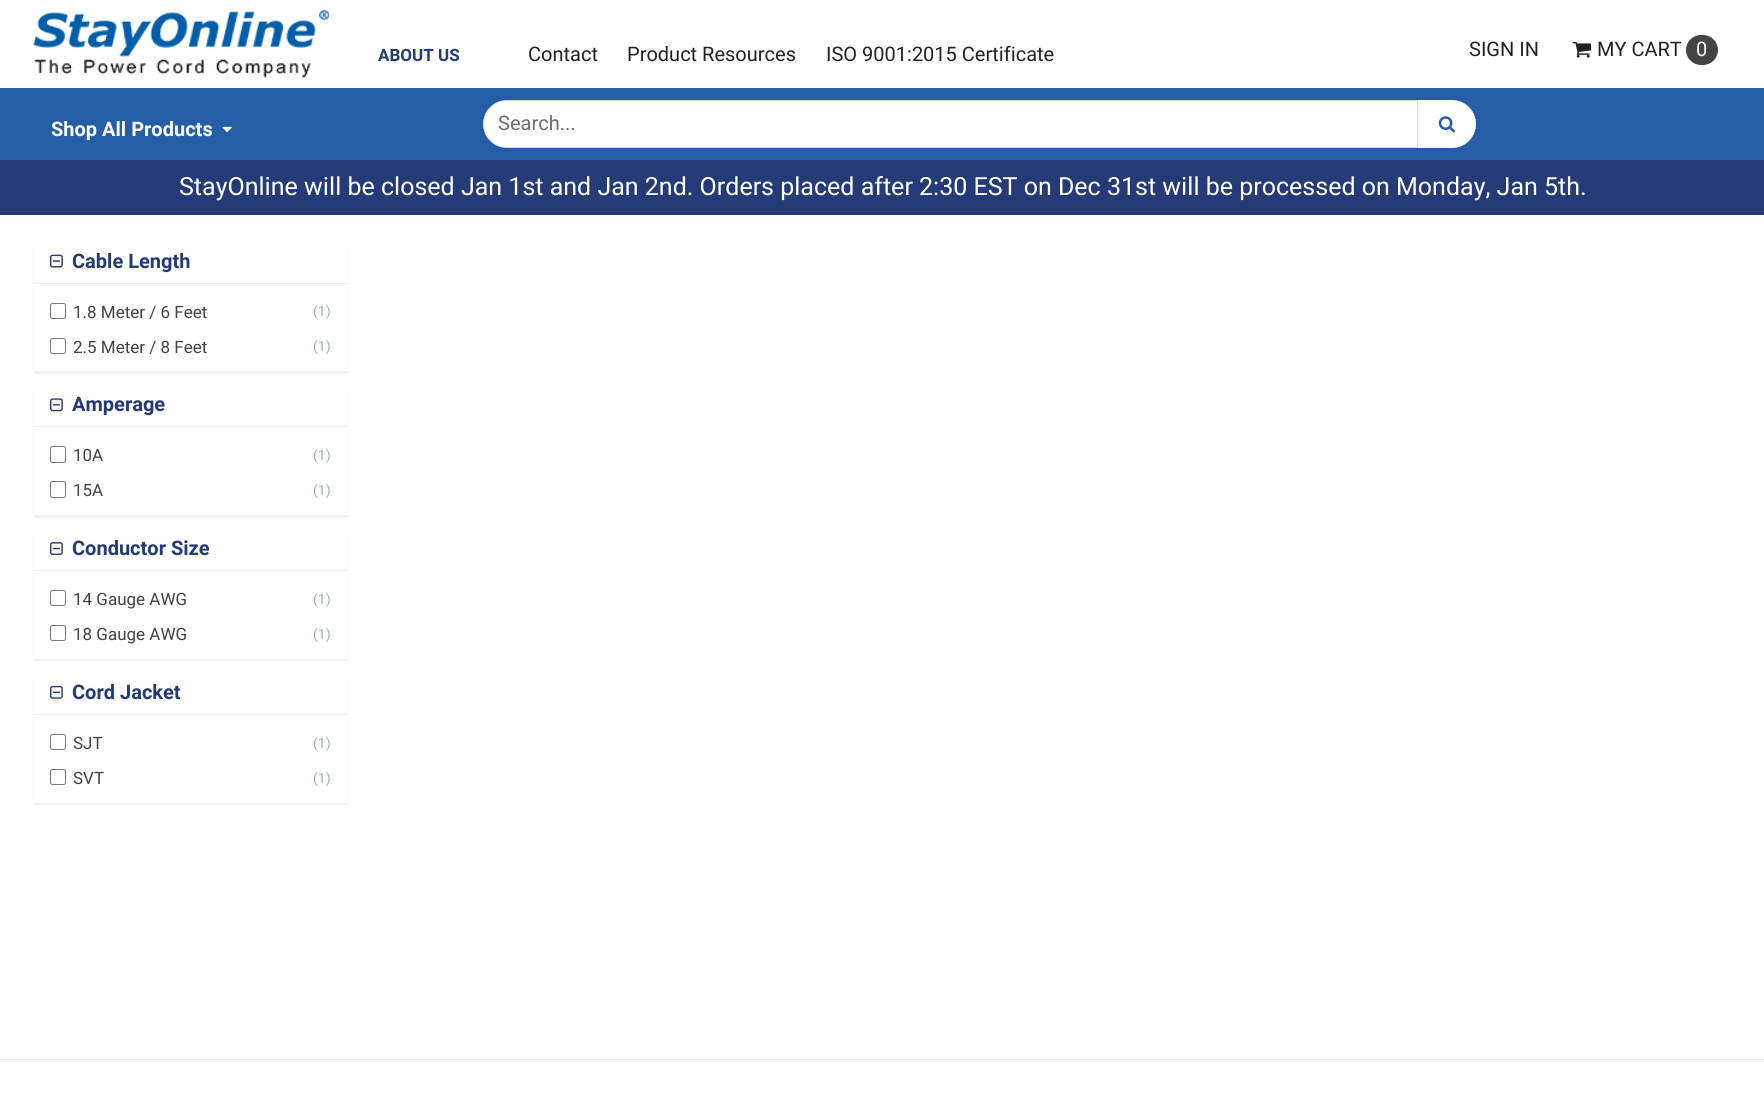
import math
import cairocffi as cairo

surface = cairo.ImageSurface(cairo.FORMAT_RGB24, 1764, 1093)
cr = cairo.Context(surface)
options = cairo.FontOptions()
options.set_hint_metrics(cairo.HINT_METRICS_OFF)
options.set_hint_style(cairo.HINT_STYLE_NONE)
cr.set_font_options(options)
cr.set_miter_limit(4)


def use_color(code):
    cr.set_source_rgb(*(v / 255 for v in bytes.fromhex(code[-6:])))


def round_rect(x, y, w, h, r):
    cr.new_sub_path()
    for i, (u, v) in enumerate([(x + w - r, y + h - r), (x + r, y + h - r), (x + r, y + r), (x + w - r, y + r)]):
        cr.arc(u, v, r, i * math.pi / 2, (i + 1) * math.pi / 2)
    cr.close_path()


def shadow(x, y, w, h, r, blur, alpha):
    cr.push_group_with_content(cairo.CONTENT_ALPHA)
    cr.set_operator(cairo.OPERATOR_SOURCE)
    for i in range(15, -16, -2):
        e = blur * i / 6
        if min(w, h) + 2 * e > 0:
            cr.set_source_rgba(0, 0, 0, alpha * math.erfc((i - 1) / 8.5) / 2)
            round_rect(x - e, y - e, w + 2 * e, h + 2 * e, max(0, min(r + e + blur * .6, min(w, h) / 2 + e)))
            cr.fill()
    cr.mask(cr.pop_group())


def picture(path, x, y, w, h):
    cr.save()
    cr.set_source_surface(cairo.ImageSurface.create_from_png(path), x, y)
    cr.rectangle(x, y, w, h)
    cr.fill()
    cr.restore()


use_color("#ffffff")
cr.paint()
picture("img1.png", 32, 9, 297, 69)
cr.select_font_face("Heebo", cairo.FONT_SLANT_NORMAL, cairo.FONT_WEIGHT_BOLD)
cr.set_font_size(17)
use_color("#253b77")
cr.move_to(378, 61)
cr.show_text("ABOUT US")
cr.select_font_face("Heebo")
cr.set_font_size(20)
use_color("#222222")
cr.move_to(528, 61)
cr.show_text("Contact")
cr.move_to(627, 61)
cr.show_text("Product Resources")
cr.move_to(826, 61)
cr.show_text("ISO 9001:2015 Certificate")
cr.move_to(1469, 56)
cr.show_text("SIGN IN")
picture("img2.png", 1572, 41, 20, 17)
cr.move_to(1597, 56)
cr.show_text("MY CART")
use_color("#444444")
round_rect(1686, 35, 32, 30, 15)
cr.fill()
use_color("#ffffff")
cr.move_to(1696, 56)
cr.show_text("0")
use_color("#255da7")
cr.rectangle(0, 88, 1764, 72)
cr.fill()
cr.select_font_face("Heebo", cairo.FONT_SLANT_NORMAL, cairo.FONT_WEIGHT_BOLD)
use_color("#ffffff")
cr.move_to(51, 136)
cr.show_text("Shop All Products")
picture("img3.png", 222, 126, 10, 6)
cr.new_path()
cr.move_to(507, 100.5)
cr.line_to(1417.5, 100.5)
cr.line_to(1417.5, 147.5)
cr.line_to(507, 147.5)
cr.curve_to(494, 147.5, 483.5, 137, 483.5, 124)
cr.curve_to(483.5, 111, 494, 100.5, 507, 100.5)
cr.close_path()
cr.fill_preserve()
use_color("#dedede")
cr.set_line_width(1)
cr.stroke()
cr.select_font_face("Heebo")
use_color("#6e6e6e")
cr.move_to(498, 130)
cr.show_text("Search...")
use_color("#ffffff")
cr.new_path()
cr.move_to(1418.5, 100.5)
cr.line_to(1452, 100.5)
cr.curve_to(1465, 100.5, 1475.5, 111, 1475.5, 124)
cr.curve_to(1475.5, 137, 1465, 147.5, 1452, 147.5)
cr.line_to(1418.5, 147.5)
cr.close_path()
cr.fill_preserve()
cr.stroke()
picture("img4.png", 1438, 116, 17, 17)
use_color("#253b77")
cr.rectangle(0, 160, 1764, 55)
cr.fill()
cr.set_font_size(25)
use_color("#ffffff")
cr.move_to(179, 195)
cr.show_text("StayOnline will be closed Jan 1st and Jan 2nd. Orders placed after 2:30 EST on Dec 31st will be processed on Monday, Jan 5th.")
use_color("#000000")
shadow(33, 243, 315, 131, 2.5, 0.5, 0.06)
use_color("#ffffff")
round_rect(33, 240, 315, 131, 2.5)
cr.fill()
use_color("#eeeeee")
cr.rectangle(33, 283, 315, 1)
cr.fill()
picture("img5.png", 50, 254, 13, 14)
cr.select_font_face("Heebo", cairo.FONT_SLANT_NORMAL, cairo.FONT_WEIGHT_BOLD)
cr.set_font_size(20)
use_color("#253b77")
cr.move_to(72, 268)
cr.show_text("Cable Length")
use_color("#ffffff")
cr.rectangle(33, 369, 315, 2)
cr.fill()
round_rect(50.5, 303.5, 15, 15, 2)
use_color("#767676")
cr.stroke()
cr.select_font_face("Heebo")
cr.set_font_size(17)
use_color("#444444")
cr.move_to(73, 318)
cr.show_text("1.8 Meter / 6 Feet")
cr.set_font_size(14)
use_color("#a0aec0")
cr.move_to(313, 316)
cr.show_text("(1)")
round_rect(50.5, 338.5, 15, 15, 2)
use_color("#767676")
cr.stroke()
cr.set_font_size(17)
use_color("#444444")
cr.move_to(73, 353)
cr.show_text("2.5 Meter / 8 Feet")
cr.set_font_size(14)
use_color("#a0aec0")
cr.move_to(313, 351)
cr.show_text("(1)")
use_color("#000000")
shadow(33, 386, 315, 132, 2.5, 0.5, 0.06)
use_color("#ffffff")
round_rect(33, 384, 315, 131, 2.5)
cr.fill()
use_color("#eeeeee")
cr.rectangle(33, 426, 315, 1)
cr.fill()
picture("img6.png", 50, 398, 13, 14)
cr.select_font_face("Heebo", cairo.FONT_SLANT_NORMAL, cairo.FONT_WEIGHT_BOLD)
cr.set_font_size(20)
use_color("#253b77")
cr.move_to(72, 411)
cr.show_text("Amperage")
use_color("#ffffff")
cr.rectangle(33, 513, 315, 2)
cr.fill()
round_rect(50.5, 446.5, 15, 16, 2)
use_color("#767676")
cr.stroke()
cr.select_font_face("Heebo")
cr.set_font_size(17)
use_color("#444444")
cr.move_to(73, 461)
cr.show_text("10A")
cr.set_font_size(14)
use_color("#a0aec0")
cr.move_to(313, 460)
cr.show_text("(1)")
round_rect(50.5, 481.5, 15, 16, 2)
use_color("#767676")
cr.stroke()
cr.set_font_size(17)
use_color("#444444")
cr.move_to(73, 496)
cr.show_text("15A")
cr.set_font_size(14)
use_color("#a0aec0")
cr.move_to(313, 495)
cr.show_text("(1)")
use_color("#000000")
shadow(33, 530, 315, 131, 2.5, 0.5, 0.06)
use_color("#ffffff")
round_rect(33, 528, 315, 131, 2.5)
cr.fill()
use_color("#eeeeee")
cr.rectangle(33, 570, 315, 1)
cr.fill()
picture("img7.png", 50, 542, 13, 13)
cr.select_font_face("Heebo", cairo.FONT_SLANT_NORMAL, cairo.FONT_WEIGHT_BOLD)
cr.set_font_size(20)
use_color("#253b77")
cr.move_to(72, 555)
cr.show_text("Conductor Size")
use_color("#ffffff")
cr.rectangle(33, 657, 315, 2)
cr.fill()
round_rect(50.5, 590.5, 15, 15, 2)
use_color("#767676")
cr.stroke()
cr.select_font_face("Heebo")
cr.set_font_size(17)
use_color("#444444")
cr.move_to(73, 605)
cr.show_text("14 Gauge AWG")
cr.set_font_size(14)
use_color("#a0aec0")
cr.move_to(313, 604)
cr.show_text("(1)")
round_rect(50.5, 625.5, 15, 15, 2)
use_color("#767676")
cr.stroke()
cr.set_font_size(17)
use_color("#444444")
cr.move_to(73, 640)
cr.show_text("18 Gauge AWG")
cr.set_font_size(14)
use_color("#a0aec0")
cr.move_to(313, 639)
cr.show_text("(1)")
use_color("#000000")
shadow(33, 674, 315, 131, 2.5, 0.5, 0.06)
use_color("#ffffff")
round_rect(33, 671, 315, 132, 2.5)
cr.fill()
use_color("#eeeeee")
cr.rectangle(33, 714, 315, 1)
cr.fill()
picture("img8.png", 50, 685, 13, 14)
cr.select_font_face("Heebo", cairo.FONT_SLANT_NORMAL, cairo.FONT_WEIGHT_BOLD)
cr.set_font_size(20)
use_color("#253b77")
cr.move_to(72, 699)
cr.show_text("Cord Jacket")
use_color("#ffffff")
cr.rectangle(33, 801, 315, 2)
cr.fill()
round_rect(50.5, 734.5, 15, 15, 2)
use_color("#767676")
cr.stroke()
cr.select_font_face("Heebo")
cr.set_font_size(17)
use_color("#444444")
cr.move_to(73, 749)
cr.show_text("SJT")
cr.set_font_size(14)
use_color("#a0aec0")
cr.move_to(313, 748)
cr.show_text("(1)")
round_rect(50.5, 769.5, 15, 15, 2)
use_color("#767676")
cr.stroke()
cr.set_font_size(17)
use_color("#444444")
cr.move_to(73, 784)
cr.show_text("SVT")
cr.set_font_size(14)
use_color("#a0aec0")
cr.move_to(313, 783)
cr.show_text("(1)")
use_color("#eeeeee")
cr.rectangle(0, 1059, 1764, 1)
cr.fill()
surface.write_to_png("result.png")
